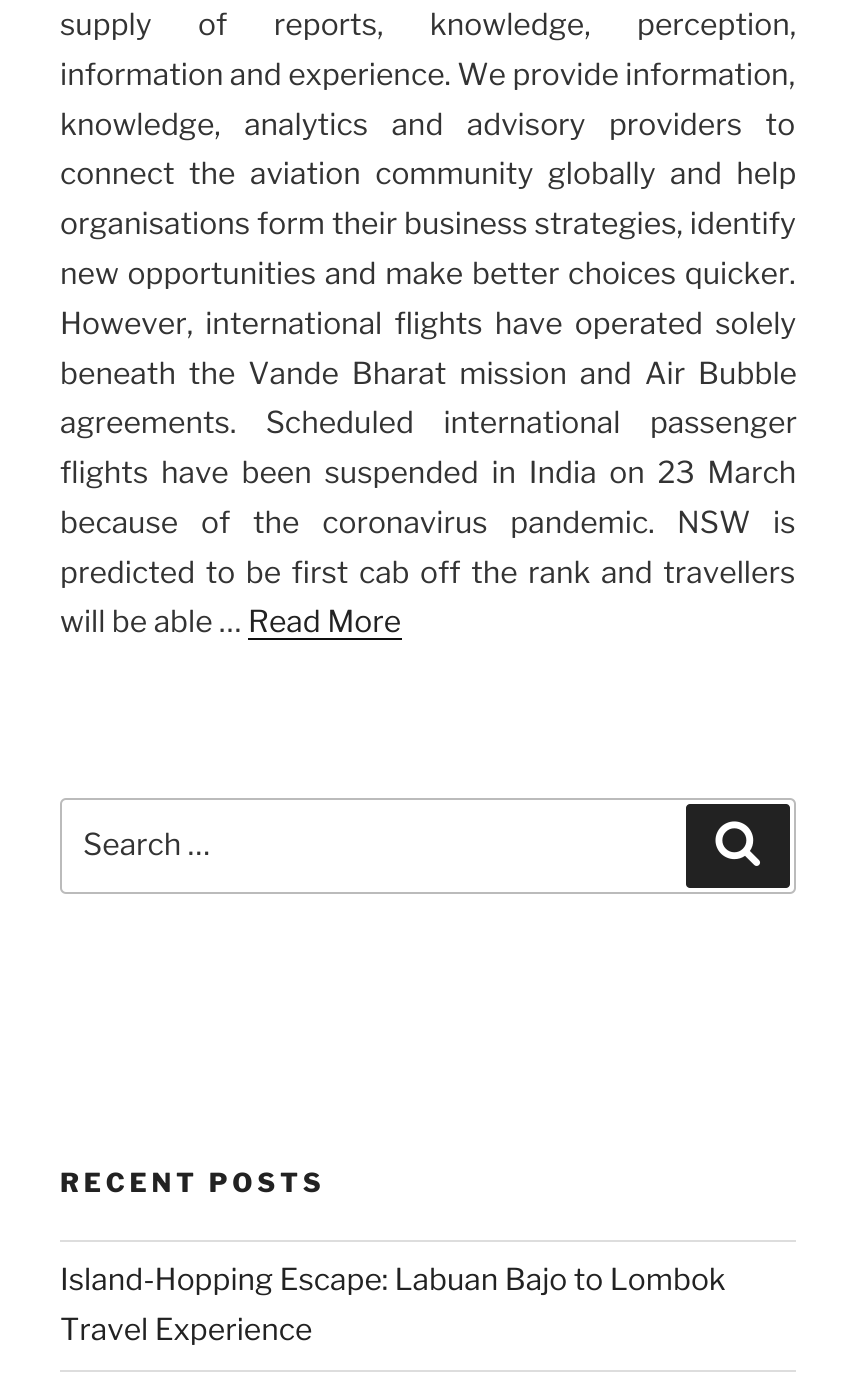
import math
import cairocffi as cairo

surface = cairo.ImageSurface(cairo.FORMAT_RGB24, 855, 1395)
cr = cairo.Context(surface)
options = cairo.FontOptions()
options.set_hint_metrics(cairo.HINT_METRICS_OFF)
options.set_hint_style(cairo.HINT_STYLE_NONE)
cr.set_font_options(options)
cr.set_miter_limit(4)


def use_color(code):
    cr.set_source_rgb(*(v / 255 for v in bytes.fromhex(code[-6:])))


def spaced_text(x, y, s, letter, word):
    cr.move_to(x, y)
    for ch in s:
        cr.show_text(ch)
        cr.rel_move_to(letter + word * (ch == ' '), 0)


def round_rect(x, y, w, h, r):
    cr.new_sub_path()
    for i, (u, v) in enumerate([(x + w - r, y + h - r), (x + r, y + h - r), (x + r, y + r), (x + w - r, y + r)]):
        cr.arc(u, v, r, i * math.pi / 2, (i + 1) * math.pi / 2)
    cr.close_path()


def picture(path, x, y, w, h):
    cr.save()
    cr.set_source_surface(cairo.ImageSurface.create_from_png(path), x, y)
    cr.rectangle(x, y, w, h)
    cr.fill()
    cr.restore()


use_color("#ffffff")
cr.paint()
cr.select_font_face("Libre Franklin Thin")
cr.set_font_size(30)
use_color("#333333")
spaced_text(60, 35, "supply of reports, knowledge, perception,", 0, 40)
cr.move_to(60, 85)
cr.show_text("information and experience. We provide information,")
spaced_text(60, 135, "knowledge, analytics and advisory providers to", 0, 17)
spaced_text(60, 184, "connect the aviation community globally and help", 0, 8)
spaced_text(60, 234, "organisations form their business strategies, identify", 0, 0.5)
spaced_text(60, 284, "new opportunities and make better choices quicker.", 0, 2.25)
spaced_text(60, 334, "However, international flights have operated solely", 0, 5.75)
spaced_text(60, 384, "beneath the Vande Bharat mission and Air Bubble", 0, 6.5)
spaced_text(60, 433, "agreements. Scheduled international passenger", 0, 23)
spaced_text(60, 483, "flights have been suspended in India on 23 March", 0, 6.25)
spaced_text(60, 533, "because of the coronavirus pandemic. NSW is", 0, 16.25)
spaced_text(60, 583, "predicted to be first cab off the rank and travellers", 0, 4)
cr.move_to(60, 632)
cr.show_text("will be able …")
use_color("#222222")
cr.move_to(248, 632)
cr.show_text("Read More")
use_color("#0f0f0f")
cr.rectangle(248, 638, 154, 2)
cr.fill()
round_rect(61, 799, 734, 94, 5)
use_color("#bbbbbb")
cr.stroke()
use_color("#333333")
cr.move_to(83, 855)
cr.show_text("Search …")
use_color("#222222")
round_rect(686, 804, 104, 84, 4)
cr.fill()
picture("img1.png", 715, 821, 46, 45)
cr.select_font_face("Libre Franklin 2 Thin")
cr.set_font_size(26)
spaced_text(60, 1192, "RECENT POSTS", 4.75, 0)
use_color("#dddddd")
cr.rectangle(60, 1240, 736, 2)
cr.fill()
cr.rectangle(60, 1370, 736, 2)
cr.fill()
cr.select_font_face("Libre Franklin Thin")
cr.set_font_size(30)
use_color("#222222")
cr.move_to(60, 1290)
cr.show_text("Island-Hopping Escape: Labuan Bajo to Lombok")
cr.move_to(60, 1340)
cr.show_text("Travel Experience")
surface.write_to_png("result.png")
